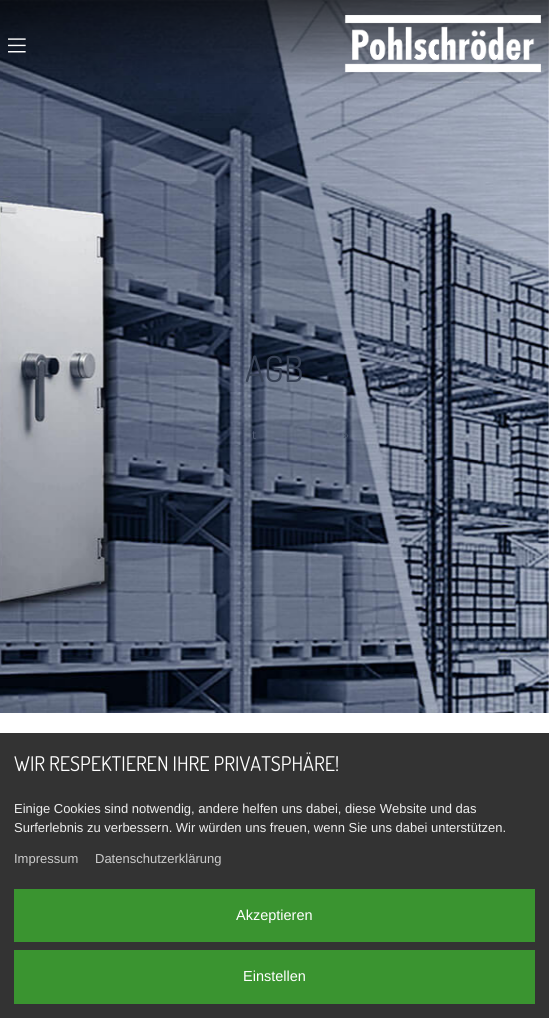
import math
import cairocffi as cairo

surface = cairo.ImageSurface(cairo.FORMAT_RGB24, 549, 1018)
cr = cairo.Context(surface)
options = cairo.FontOptions()
options.set_hint_metrics(cairo.HINT_METRICS_OFF)
options.set_hint_style(cairo.HINT_STYLE_NONE)
cr.set_font_options(options)
cr.set_miter_limit(4)


def use_color(code):
    cr.set_source_rgb(*(v / 255 for v in bytes.fromhex(code[-6:])))


def picture(path, x, y, w, h):
    cr.save()
    cr.set_source_surface(cairo.ImageSurface.create_from_png(path), x, y)
    cr.rectangle(x, y, w, h)
    cr.fill()
    cr.restore()


use_color("#ffffff")
cr.paint()
picture("img3.png", 0, 0, 549, 713)
gradient = cairo.LinearGradient(275, 0, 275, 87)
gradient.add_color_stop_rgba(0, 0, 0, 0, 0.66)
gradient.add_color_stop_rgba(1, 0, 0, 0, 0)
cr.set_source(gradient)
cr.rectangle(0, 0, 549, 84)
cr.fill()
picture("img1.png", 8, 38, 18, 15)
picture("img2.png", 344, 15, 197, 58)
cr.select_font_face("Dosis ExtraLight")
cr.set_font_size(36)
use_color("#374154")
cr.move_to(245, 382)
cr.show_text("AGB")
cr.select_font_face("Open Sans")
cr.set_font_size(12)
use_color("#505a72")
cr.move_to(252, 439)
cr.show_text("t")
use_color("#455167")
cr.move_to(343, 439)
cr.show_text("»")
use_color("#333333")
cr.rectangle(0, 733, 549, 285)
cr.fill()
cr.select_font_face("Dosis ExtraLight")
cr.set_font_size(20.25)
use_color("#ffffff")
cr.move_to(14, 771)
cr.show_text("WIR RESPEKTIEREN IHRE PRIVATSPHÄRE!")
cr.select_font_face("Liberation Sans")
cr.set_font_size(13)
use_color("#eeeeee")
cr.move_to(14, 813)
cr.show_text("Einige Cookies sind notwendig, andere helfen uns dabei, diese Website und das")
cr.move_to(14, 832)
cr.show_text("Surferlebnis zu verbessern. Wir würden uns freuen, wenn Sie uns dabei unterstützen.")
use_color("#cccccc")
cr.move_to(14, 863)
cr.show_text("Impressum")
cr.move_to(95, 863)
cr.show_text("Datenschutzerklärung")
use_color("#3a9430")
cr.rectangle(14, 889, 521, 53)
cr.fill()
cr.set_font_size(14.5)
use_color("#ffffff")
cr.move_to(236, 920)
cr.show_text("Akzeptieren")
use_color("#3a9430")
cr.rectangle(14, 950, 521, 54)
cr.fill()
use_color("#ffffff")
cr.move_to(243, 981)
cr.show_text("Einstellen")
surface.write_to_png("result.png")
